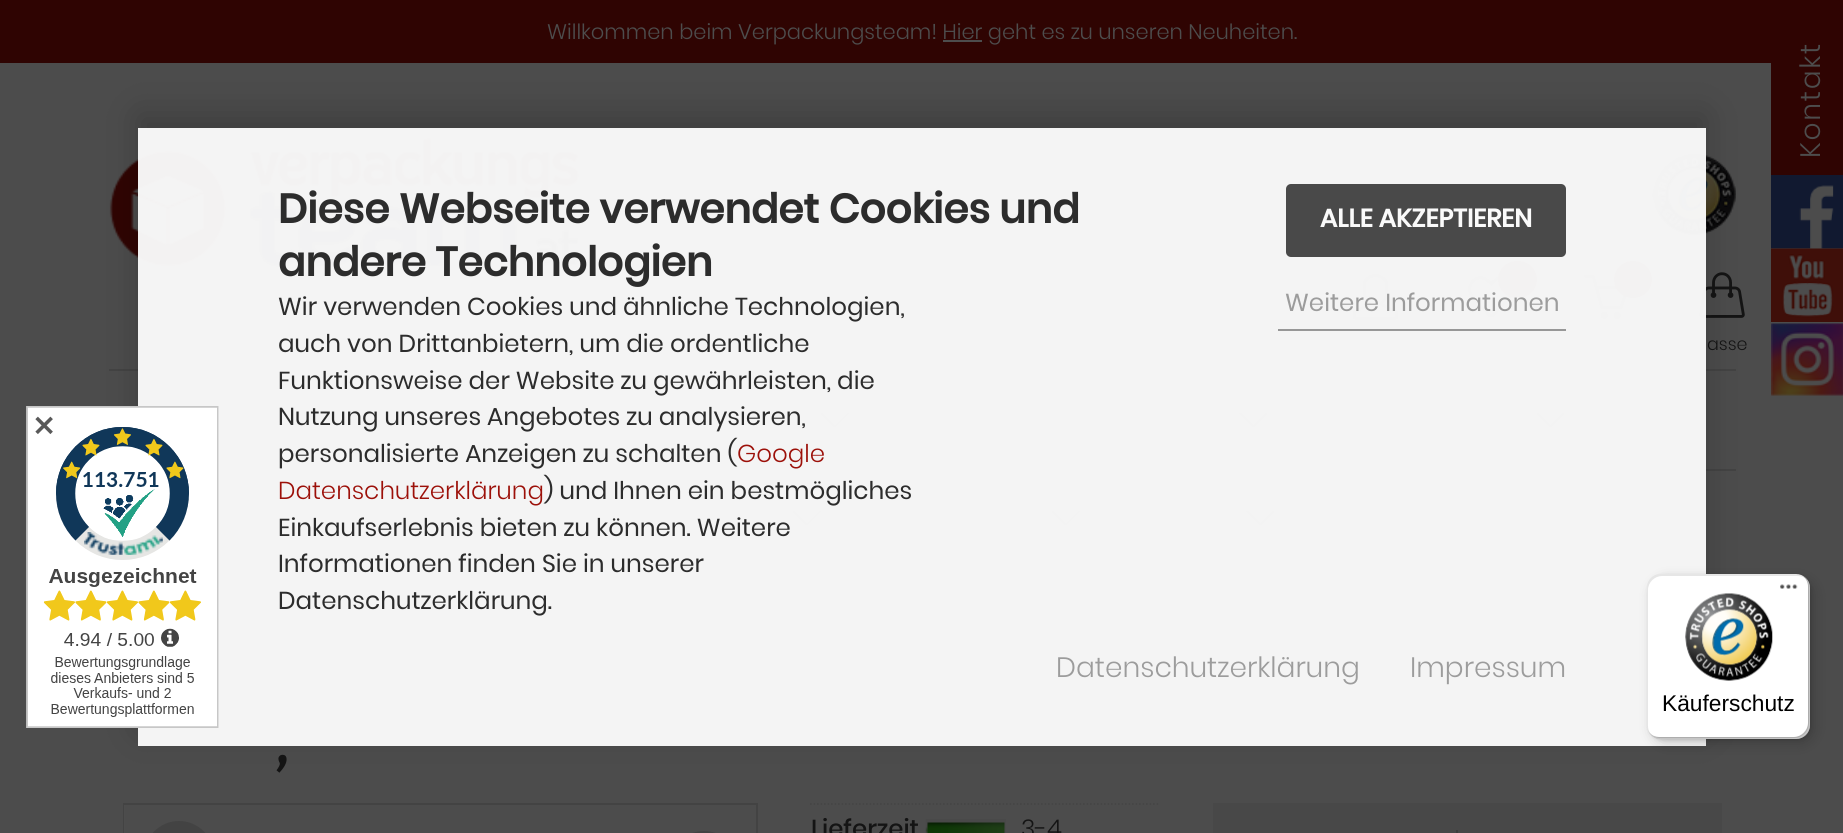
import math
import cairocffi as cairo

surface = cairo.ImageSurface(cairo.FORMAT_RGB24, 1843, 833)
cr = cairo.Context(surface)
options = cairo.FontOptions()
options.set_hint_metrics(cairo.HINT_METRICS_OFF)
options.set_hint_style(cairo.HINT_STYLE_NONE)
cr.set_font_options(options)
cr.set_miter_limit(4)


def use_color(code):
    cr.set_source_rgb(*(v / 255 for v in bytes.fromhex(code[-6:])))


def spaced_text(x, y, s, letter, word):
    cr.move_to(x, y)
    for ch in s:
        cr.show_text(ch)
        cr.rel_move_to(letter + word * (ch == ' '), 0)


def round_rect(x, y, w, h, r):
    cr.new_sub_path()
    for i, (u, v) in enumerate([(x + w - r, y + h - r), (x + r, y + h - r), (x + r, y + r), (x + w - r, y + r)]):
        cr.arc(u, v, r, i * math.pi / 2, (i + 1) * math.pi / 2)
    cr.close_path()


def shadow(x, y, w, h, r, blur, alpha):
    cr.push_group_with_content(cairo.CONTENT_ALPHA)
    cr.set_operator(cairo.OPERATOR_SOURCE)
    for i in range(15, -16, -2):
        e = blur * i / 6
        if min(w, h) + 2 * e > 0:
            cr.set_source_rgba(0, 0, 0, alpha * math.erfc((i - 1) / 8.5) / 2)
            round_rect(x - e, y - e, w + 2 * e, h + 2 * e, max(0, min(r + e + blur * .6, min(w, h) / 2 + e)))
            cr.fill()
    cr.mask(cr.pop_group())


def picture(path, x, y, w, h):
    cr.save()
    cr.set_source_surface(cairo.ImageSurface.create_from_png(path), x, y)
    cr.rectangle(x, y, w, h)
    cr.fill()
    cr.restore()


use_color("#4c4c4c")
cr.paint()
use_color("#2f0402")
cr.rectangle(0, 0, 1843, 63)
cr.fill()
cr.select_font_face("Poppins Light")
cr.set_font_size(21)
use_color("#4d4d4d")
cr.move_to(547, 39)
cr.show_text("Willkommen beim Verpackungsteam! Hier geht es zu unseren Neuheiten.")
cr.rectangle(943, 40, 39, 2)
cr.fill()
picture("img1.png", 109, 137, 471, 132)
round_rect(888, 160, 639, 77, 6)
use_color("#434343")
cr.stroke()
picture("img2.png", 1465, 173, 34, 11)
picture("img3.png", 1652, 154, 84, 81)
picture("img4.png", 1352, 274, 47, 46)
picture("img5.png", 1468, 276, 44, 42)
use_color("#2f0402")
round_rect(1499, 262, 37, 35, 17.5)
cr.fill_preserve()
cr.stroke()
picture("img6.png", 1583, 274, 44, 45)
round_rect(1615, 262, 36, 35, 17.5)
cr.fill_preserve()
cr.stroke()
picture("img7.png", 1699, 272, 46, 46)
cr.set_font_size(17.5)
use_color("#141414")
cr.move_to(1707, 350)
cr.show_text("asse")
use_color("#434343")
cr.rectangle(109, 369, 1627, 2)
cr.fill()
cr.rectangle(219, 469, 1517, 2)
cr.fill()
picture("img8.png", 600, 412, 29, 16)
picture("img9.png", 821, 412, 28, 16)
picture("img10.png", 1239, 412, 28, 16)
picture("img11.png", 1536, 412, 29, 16)
picture("img9.png", 793, 510, 28, 16)
picture("img9.png", 1052, 510, 28, 16)
picture("img10.png", 1246, 510, 28, 16)
cr.select_font_face("Bitter")
cr.set_font_size(63)
use_color("#141414")
cr.move_to(274, 763)
cr.show_text(",")
cr.rectangle(124, 804, 633, 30)
use_color("#434343")
cr.stroke()
use_color("#4d4d4d")
cr.rectangle(124, 805, 1, 28)
cr.fill()
use_color("#434343")
round_rect(144, 821, 70, 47, 35)
cr.fill()
round_rect(669, 831, 70, 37, 35)
cr.fill()
cr.new_path()
cr.move_to(810, 804)
cr.line_to(1160, 804)
use_color("#464646")
cr.set_line_width(1.8)
cr.set_dash([1.75, 1.75])
cr.stroke()
cr.select_font_face("Poppins Medium")
cr.set_font_size(24.5)
use_color("#141414")
cr.move_to(811, 837)
cr.show_text("Lieferzeit")
picture("img12.png", 925, 819, 81, 14)
cr.select_font_face("Poppins Light")
cr.move_to(1021, 837)
cr.show_text("3-4")
use_color("#484848")
cr.rectangle(1213, 803, 509, 30)
cr.fill()
use_color("#3d3d3d")
cr.rectangle(1456, 830, 2, 3)
cr.fill()
use_color("#2f0402")
cr.rectangle(1771, 63, 72, 112)
cr.fill()
cr.set_font_size(28)
use_color("#4d4d4d")
cr.save()
cr.translate(1820, 158)
cr.rotate(-90 * math.pi / 180)
spaced_text(0, 0, "Kontakt", 1.75, 0)
cr.restore()
picture("img13.png", 1771, 175, 72, 74)
picture("img14.png", 1771, 248, 72, 74)
picture("img15.png", 1771, 323, 72, 73)
cr.save()
cr.set_fill_rule(cairo.FILL_RULE_EVEN_ODD)
cr.new_path()
cr.move_to(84, 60)
cr.line_to(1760, 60)
cr.line_to(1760, 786)
cr.line_to(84, 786)
cr.close_path()
cr.move_to(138, 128)
cr.line_to(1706, 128)
cr.line_to(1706, 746)
cr.line_to(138, 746)
cr.close_path()
cr.clip()
use_color("#000000")
shadow(138, 114, 1568, 618, 0, 17.5, 0.19)
cr.restore()
cr.set_source_rgba(0.976, 0.976, 0.976, 0.97)
cr.rectangle(138, 128, 1568, 618)
cr.fill()
picture("img16.png", 26, 406, 193, 322)
cr.select_font_face("DejaVu Sans", cairo.FONT_SLANT_NORMAL, cairo.FONT_WEIGHT_BOLD)
use_color("#595959")
cr.move_to(32, 436)
cr.show_text("✕")
cr.select_font_face("Poppins", cairo.FONT_SLANT_NORMAL, cairo.FONT_WEIGHT_BOLD)
cr.set_font_size(40.6)
use_color("#2c2c2c")
cr.move_to(278, 223)
cr.show_text("Diese Webseite verwendet Cookies und")
cr.move_to(278, 276)
cr.show_text("andere Technologien")
cr.select_font_face("Poppins")
cr.set_font_size(24.5)
cr.move_to(278, 315)
cr.show_text("Wir verwenden Cookies und ähnliche Technologien,")
cr.move_to(278, 352)
cr.show_text("auch von Drittanbietern, um die ordentliche")
cr.move_to(278, 389)
cr.show_text("Funktionsweise der Website zu gewährleisten, die")
cr.move_to(278, 425)
cr.show_text("Nutzung unseres Angebotes zu analysieren,")
cr.move_to(278, 462)
cr.show_text("personalisierte Anzeigen zu schalten (")
cr.select_font_face("Poppins Light")
use_color("#9c1009")
cr.move_to(737, 462)
cr.show_text("Google")
cr.move_to(278, 499)
cr.show_text("Datenschutzerklärung")
cr.select_font_face("Poppins")
use_color("#2c2c2c")
cr.move_to(544, 499)
cr.show_text(") und Ihnen ein bestmögliches")
cr.move_to(278, 536)
cr.show_text("Einkaufserlebnis bieten zu können. Weitere")
cr.move_to(278, 572)
cr.show_text("Informationen finden Sie in unserer")
cr.move_to(278, 609)
cr.show_text("Datenschutzerklärung.")
use_color("#494949")
round_rect(1286, 184, 280, 73, 5)
cr.fill()
cr.select_font_face("Poppins", cairo.FONT_SLANT_NORMAL, cairo.FONT_WEIGHT_BOLD)
cr.set_font_size(25.25)
use_color("#fafafa")
cr.move_to(1320, 227)
cr.show_text("ALLE AKZEPTIEREN")
use_color("#979797")
cr.rectangle(1278, 329, 288, 2)
cr.fill()
cr.select_font_face("Poppins")
cr.set_font_size(24.5)
use_color("#9c9c9c")
cr.move_to(1285, 311)
cr.show_text("Weitere Informationen")
cr.select_font_face("Poppins Light")
cr.set_font_size(28)
cr.move_to(1056, 677)
cr.show_text("Datenschutzerklärung")
cr.move_to(1410, 677)
cr.show_text("Impressum")
use_color("#000000")
shadow(1652, 579, 163, 165, 14, 7, 0.15)
shadow(1649, 576, 162, 164, 14, 2, 0.15)
use_color("#ffffff")
round_rect(1647, 574, 163, 165, 14)
cr.fill()
cr.set_source_rgba(0, 0, 0, 0.1)
cr.new_path()
cr.move_to(1662, 576)
cr.line_to(1797, 576)
cr.curve_to(1802, 576, 1806, 578, 1809, 582)
cr.curve_to(1806, 577, 1802, 574, 1796, 574)
cr.line_to(1661, 574)
cr.curve_to(1653, 574, 1647, 580, 1647, 588)
cr.line_to(1647, 725)
cr.curve_to(1647, 730, 1649, 734, 1653, 736)
cr.curve_to(1650, 734, 1648, 730, 1648, 726)
cr.line_to(1648, 590)
cr.curve_to(1648, 582, 1655, 576, 1662, 576)
cr.close_path()
cr.fill()
cr.set_source_rgba(0, 0, 0, 0.2)
cr.new_path()
cr.move_to(1650, 733)
cr.curve_to(1652, 737, 1656, 739, 1661, 739)
cr.line_to(1796, 739)
cr.curve_to(1804, 739, 1810, 733, 1810, 725)
cr.line_to(1810, 588)
cr.curve_to(1810, 583, 1807, 578, 1803, 576)
cr.curve_to(1806, 579, 1808, 582, 1808, 586)
cr.line_to(1808, 723)
cr.curve_to(1808, 730, 1801, 737, 1794, 737)
cr.line_to(1659, 737)
cr.curve_to(1655, 737, 1652, 736, 1650, 733)
cr.close_path()
cr.fill()
cr.set_source_rgba(0.196, 0.196, 0.196, 0.2)
cr.new_path()
cr.move_to(1648, 731)
cr.curve_to(1651, 736, 1655, 739, 1661, 739)
cr.line_to(1796, 739)
cr.curve_to(1804, 739, 1810, 733, 1810, 725)
cr.line_to(1810, 588)
cr.curve_to(1810, 582, 1807, 578, 1802, 575)
cr.curve_to(1806, 578, 1808, 582, 1808, 587)
cr.line_to(1808, 723)
cr.curve_to(1808, 731, 1802, 737, 1794, 737)
cr.line_to(1660, 737)
cr.curve_to(1655, 737, 1651, 735, 1648, 731)
cr.close_path()
cr.fill()
cr.set_source_rgba(1, 1, 1, 0.3)
cr.new_path()
cr.move_to(1650, 733)
cr.curve_to(1652, 737, 1656, 739, 1661, 739)
cr.line_to(1796, 739)
cr.curve_to(1804, 739, 1810, 733, 1810, 725)
cr.line_to(1810, 588)
cr.curve_to(1810, 583, 1808, 579, 1804, 577)
cr.curve_to(1807, 579, 1809, 583, 1809, 587)
cr.line_to(1809, 724)
cr.curve_to(1809, 731, 1802, 738, 1795, 738)
cr.line_to(1660, 738)
cr.curve_to(1656, 738, 1652, 736, 1650, 733)
cr.close_path()
cr.fill()
picture("img17.png", 1780, 584, 18, 5)
picture("img18.png", 1685, 593, 88, 88)
cr.select_font_face("Liberation Sans")
cr.set_font_size(22.75)
use_color("#000000")
cr.move_to(1662, 711)
cr.show_text("Käuferschutz")
surface.write_to_png("result.png")
